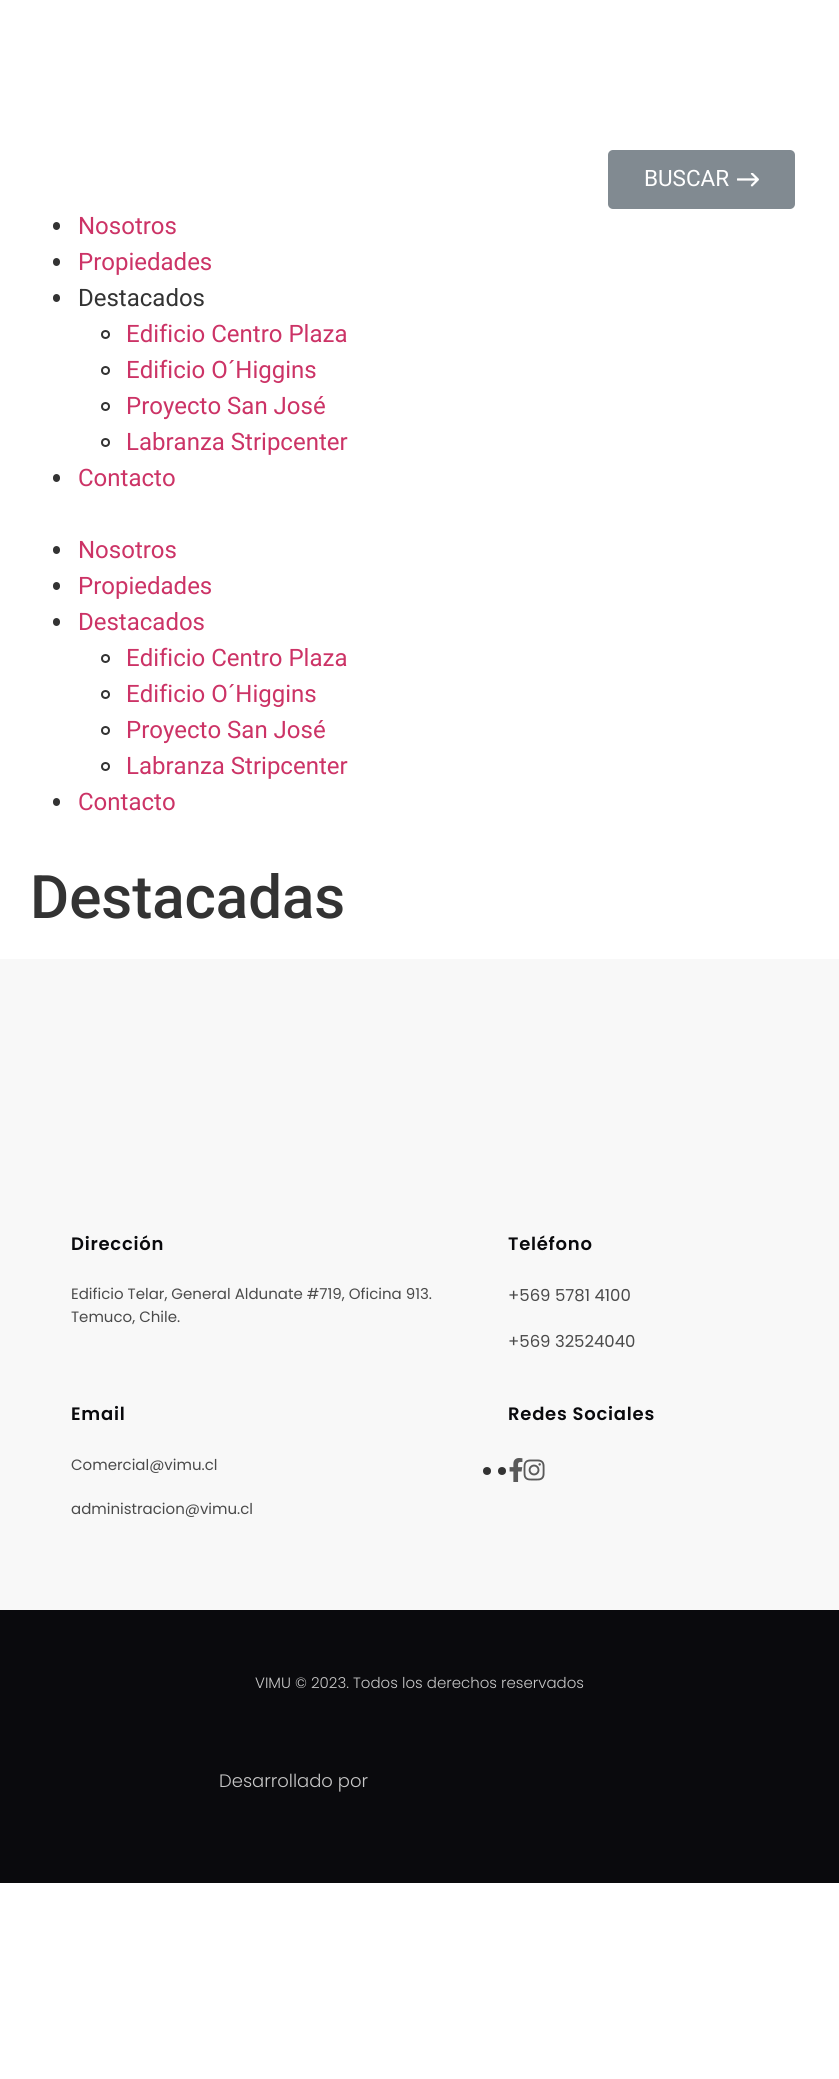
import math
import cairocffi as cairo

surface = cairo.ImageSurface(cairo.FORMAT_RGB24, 839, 2079)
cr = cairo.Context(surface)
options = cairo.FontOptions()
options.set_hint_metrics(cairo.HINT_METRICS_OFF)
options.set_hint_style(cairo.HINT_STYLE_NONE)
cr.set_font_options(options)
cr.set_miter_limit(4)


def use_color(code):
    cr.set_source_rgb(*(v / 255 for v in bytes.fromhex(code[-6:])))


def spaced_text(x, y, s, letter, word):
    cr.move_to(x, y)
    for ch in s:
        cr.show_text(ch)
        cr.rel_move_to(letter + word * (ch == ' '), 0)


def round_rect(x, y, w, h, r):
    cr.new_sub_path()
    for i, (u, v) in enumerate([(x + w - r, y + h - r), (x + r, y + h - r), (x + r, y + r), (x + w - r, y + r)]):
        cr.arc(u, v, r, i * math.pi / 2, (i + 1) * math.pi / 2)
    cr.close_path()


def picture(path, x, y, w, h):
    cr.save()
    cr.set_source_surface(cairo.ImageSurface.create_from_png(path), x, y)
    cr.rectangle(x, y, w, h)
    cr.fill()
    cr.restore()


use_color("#ffffff")
cr.paint()
use_color("#818a91")
round_rect(608, 150, 187, 59, 5)
cr.fill()
cr.select_font_face("Roboto")
cr.set_font_size(22.5)
use_color("#ffffff")
cr.move_to(644, 186)
cr.show_text("BUSCAR")
picture("img1.png", 737, 173, 22, 14)
use_color("#333333")
round_rect(53, 222, 7, 8, 3.5)
cr.fill()
cr.set_font_size(24)
use_color("#cc3366")
cr.move_to(78, 234)
cr.show_text("Nosotros")
use_color("#333333")
round_rect(53, 258, 7, 8, 3.5)
cr.fill()
use_color("#cc3366")
cr.move_to(78, 270)
cr.show_text("Propiedades")
use_color("#333333")
round_rect(53, 294, 7, 8, 3.5)
cr.fill()
cr.move_to(78, 306)
cr.show_text("Destacados")
cr.new_path()
cr.arc(105.5, 334.5, 3.5, 0, 2 * math.pi)
cr.stroke()
use_color("#cc3366")
cr.move_to(126, 342)
cr.show_text("Edificio Centro Plaza")
cr.new_path()
cr.arc(105.5, 370.5, 3.5, 0, 2 * math.pi)
use_color("#333333")
cr.stroke()
use_color("#cc3366")
cr.move_to(126, 378)
cr.show_text("Edificio O´Higgins")
cr.new_path()
cr.arc(105.5, 406.5, 3.5, 0, 2 * math.pi)
use_color("#333333")
cr.stroke()
use_color("#cc3366")
cr.move_to(126, 414)
cr.show_text("Proyecto San José")
cr.new_path()
cr.arc(105.5, 442.5, 3.5, 0, 2 * math.pi)
use_color("#333333")
cr.stroke()
use_color("#cc3366")
cr.move_to(126, 450)
cr.show_text("Labranza Stripcenter")
use_color("#333333")
round_rect(53, 474, 7, 8, 3.5)
cr.fill()
use_color("#cc3366")
cr.move_to(78, 486)
cr.show_text("Contacto")
use_color("#333333")
round_rect(53, 546, 7, 8, 3.5)
cr.fill()
use_color("#cc3366")
cr.move_to(78, 558)
cr.show_text("Nosotros")
use_color("#333333")
round_rect(53, 582, 7, 8, 3.5)
cr.fill()
use_color("#cc3366")
cr.move_to(78, 594)
cr.show_text("Propiedades")
use_color("#333333")
round_rect(53, 618, 7, 8, 3.5)
cr.fill()
use_color("#cc3366")
cr.move_to(78, 630)
cr.show_text("Destacados")
cr.new_path()
cr.arc(105.5, 658.5, 3.5, 0, 2 * math.pi)
use_color("#333333")
cr.stroke()
use_color("#cc3366")
cr.move_to(126, 666)
cr.show_text("Edificio Centro Plaza")
cr.new_path()
cr.arc(105.5, 694.5, 3.5, 0, 2 * math.pi)
use_color("#333333")
cr.stroke()
use_color("#cc3366")
cr.move_to(126, 702)
cr.show_text("Edificio O´Higgins")
cr.new_path()
cr.arc(105.5, 730.5, 3.5, 0, 2 * math.pi)
use_color("#333333")
cr.stroke()
use_color("#cc3366")
cr.move_to(126, 738)
cr.show_text("Proyecto San José")
cr.new_path()
cr.arc(105.5, 766.5, 3.5, 0, 2 * math.pi)
use_color("#333333")
cr.stroke()
use_color("#cc3366")
cr.move_to(126, 774)
cr.show_text("Labranza Stripcenter")
use_color("#333333")
round_rect(53, 798, 7, 8, 3.5)
cr.fill()
use_color("#cc3366")
cr.move_to(78, 810)
cr.show_text("Contacto")
cr.select_font_face("Roboto Medium")
cr.set_font_size(60)
use_color("#333333")
cr.move_to(30, 918)
cr.show_text("Destacadas")
use_color("#f8f8f8")
cr.rectangle(0, 959, 839, 651)
cr.fill()
cr.select_font_face("Poppins SemiBold")
cr.set_font_size(18)
use_color("#0a0a0d")
spaced_text(71, 1250, "Dirección", 0.75, 0)
cr.select_font_face("Poppins")
cr.set_font_size(15)
use_color("#4a4a4a")
cr.move_to(71, 1299)
cr.show_text("Edificio Telar, General Aldunate #719, Oficina 913.")
cr.move_to(71, 1322)
cr.show_text("Temuco, Chile.")
cr.select_font_face("Poppins SemiBold")
cr.set_font_size(18)
use_color("#0a0a0d")
spaced_text(508, 1250, "Teléfono", 0.75, 0)
cr.select_font_face("Poppins")
cr.set_font_size(16.5)
use_color("#4a4a4a")
cr.move_to(508, 1301)
cr.show_text("+569 5781 4100")
cr.move_to(508, 1347)
cr.show_text("+569 32524040")
cr.select_font_face("Poppins SemiBold")
cr.set_font_size(18)
use_color("#0a0a0d")
spaced_text(71, 1420, "Email", 0.75, 0)
cr.select_font_face("Poppins")
cr.set_font_size(15)
use_color("#4a4a4a")
cr.move_to(71, 1470)
cr.show_text("Comercial@vimu.cl")
cr.move_to(71, 1514)
cr.show_text("administracion@vimu.cl")
cr.select_font_face("Poppins SemiBold")
cr.set_font_size(18)
use_color("#0a0a0d")
spaced_text(508, 1420, "Redes Sociales", 0.75, 0)
use_color("#333333")
cr.new_path()
cr.arc(487, 1471, 4, 0, 2 * math.pi)
cr.fill()
picture("img2.png", 509, 1458, 14, 24)
cr.arc(502, 1471, 4, 0, 2 * math.pi)
cr.fill()
picture("img3.png", 523, 1459, 22, 22)
use_color("#0a0a0d")
cr.rectangle(0, 1610, 839, 273)
cr.fill()
cr.select_font_face("Poppins Light")
cr.set_font_size(15)
use_color("#c7c7c7")
cr.move_to(255, 1688)
cr.show_text("VIMU © 2023. Todos los derechos reservados")
cr.set_font_size(18)
cr.move_to(219, 1787)
cr.show_text("Desarrollado por")
surface.write_to_png("result.png")
